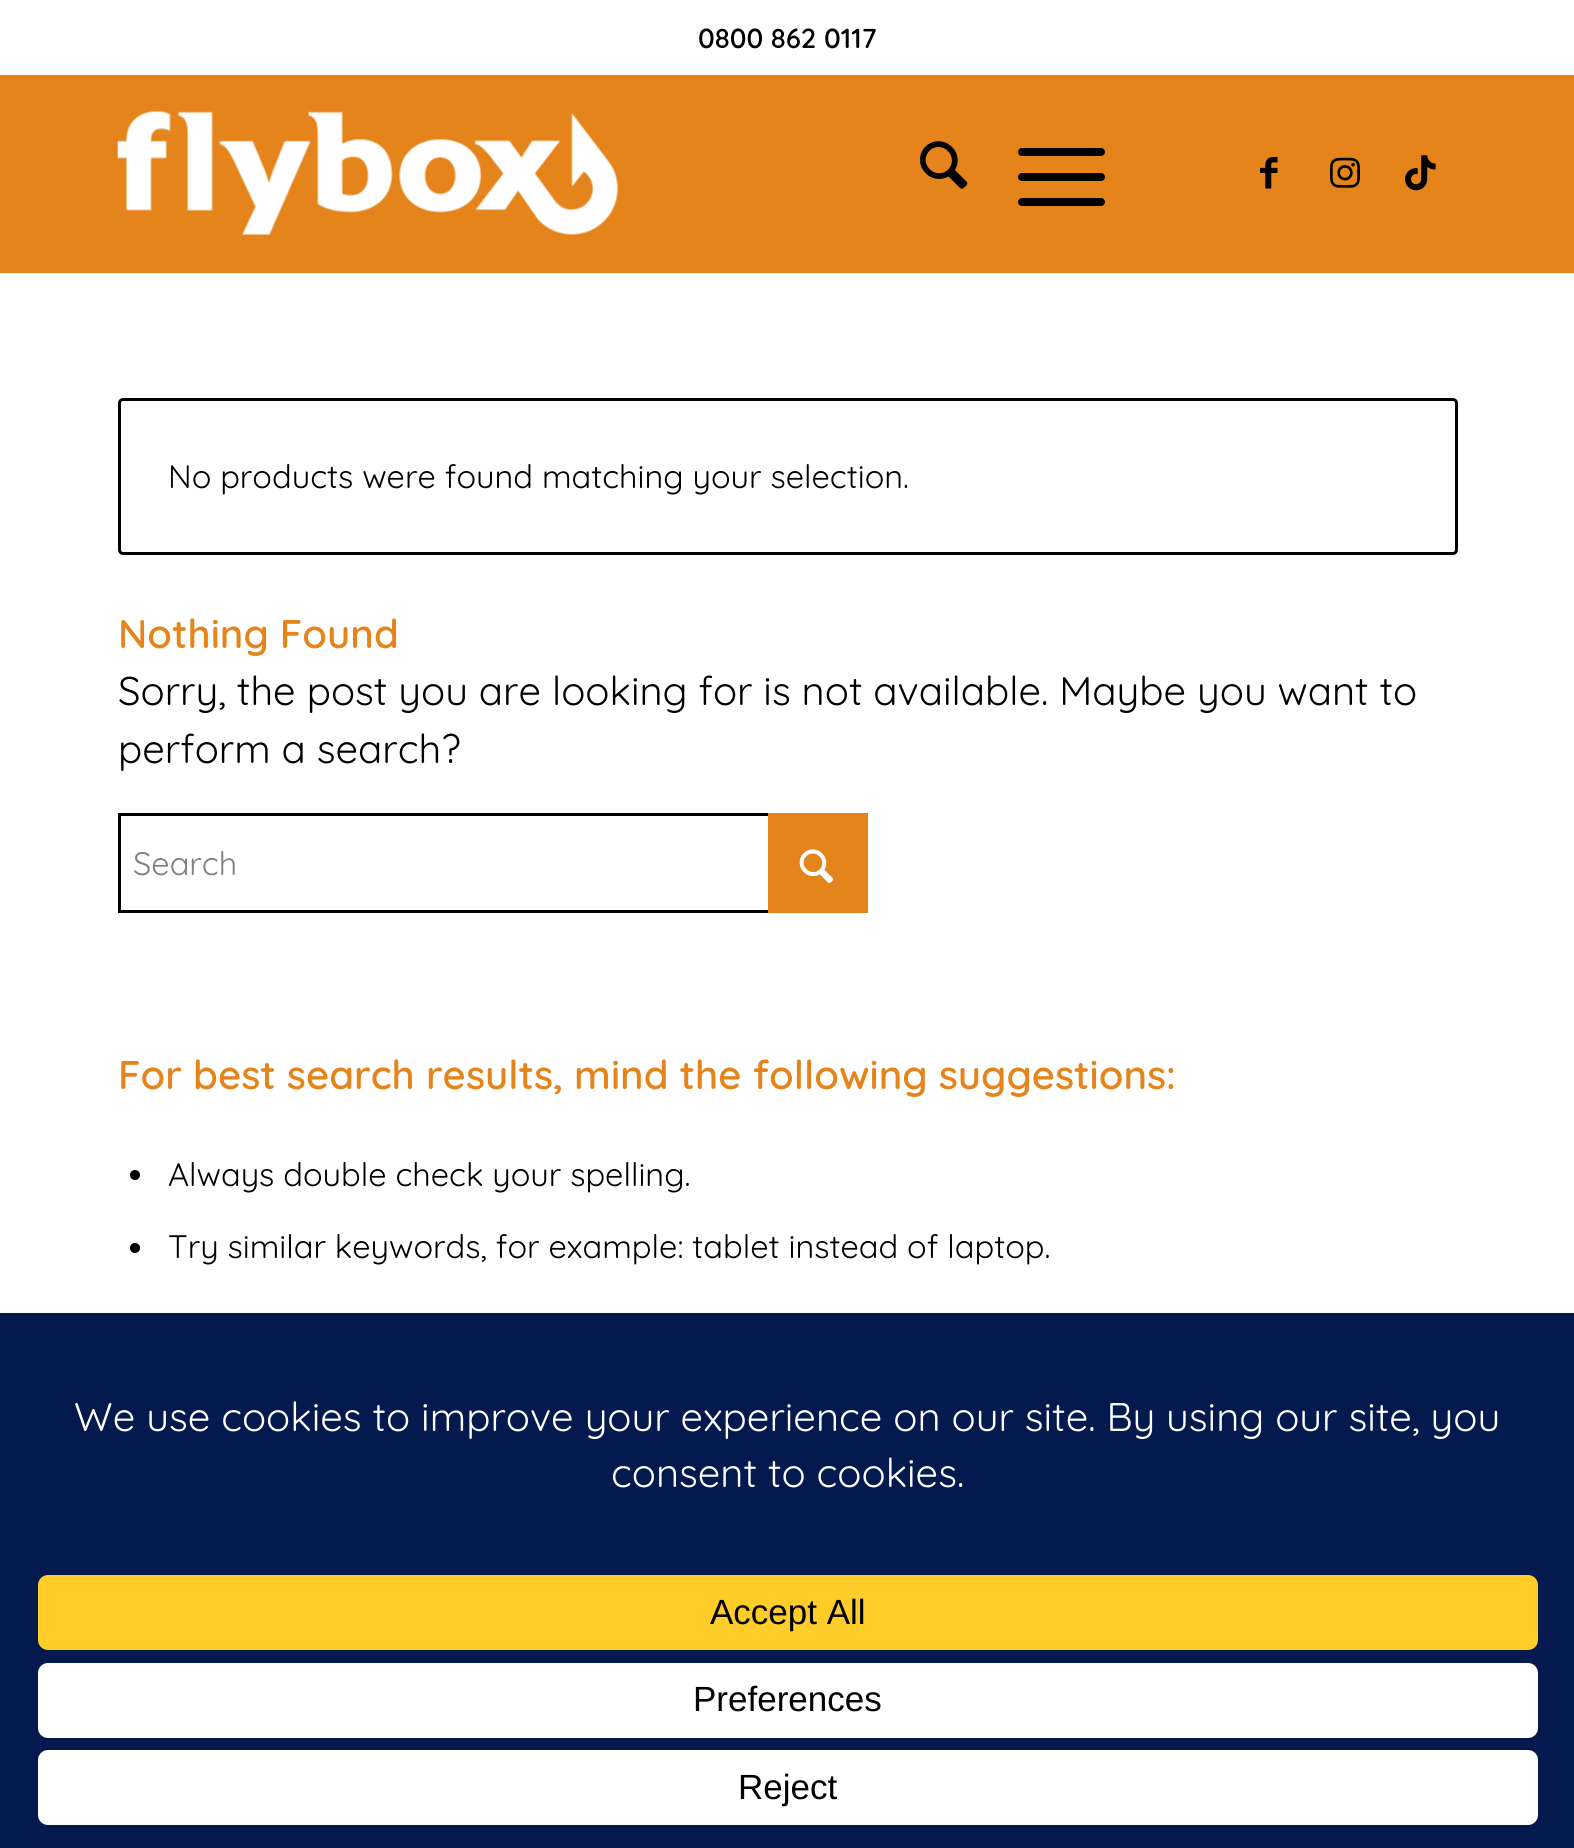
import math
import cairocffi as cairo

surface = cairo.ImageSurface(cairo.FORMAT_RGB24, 1574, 1848)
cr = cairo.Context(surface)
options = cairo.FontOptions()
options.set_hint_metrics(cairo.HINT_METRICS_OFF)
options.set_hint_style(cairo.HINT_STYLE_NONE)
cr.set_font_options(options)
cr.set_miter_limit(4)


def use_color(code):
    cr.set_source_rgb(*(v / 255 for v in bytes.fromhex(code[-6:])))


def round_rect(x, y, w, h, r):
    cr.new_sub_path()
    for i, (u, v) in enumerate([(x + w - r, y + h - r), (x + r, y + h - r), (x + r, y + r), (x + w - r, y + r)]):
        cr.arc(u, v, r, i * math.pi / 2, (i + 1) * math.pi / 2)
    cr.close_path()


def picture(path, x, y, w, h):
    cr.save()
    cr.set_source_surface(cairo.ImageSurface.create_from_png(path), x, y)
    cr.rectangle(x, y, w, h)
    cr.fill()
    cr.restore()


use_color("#ffffff")
cr.paint()
cr.select_font_face("Quicksand SemiBold")
cr.set_font_size(27.5)
use_color("#000000")
cr.move_to(698, 48)
cr.show_text("0800 862 0117")
use_color("#e6841c")
cr.rectangle(0, 75, 1574, 198)
cr.fill()
picture("img1.png", 117, 111, 501, 124)
picture("img2.png", 920, 141, 48, 48)
use_color("#000000")
round_rect(1018, 173, 87, 8, 4)
cr.fill()
round_rect(1018, 148, 87, 8, 4)
cr.fill()
round_rect(1018, 198, 87, 8, 4)
cr.fill()
picture("img3.png", 1260, 157, 18, 32)
picture("img4.png", 1330, 157, 30, 31)
picture("img5.png", 1405, 155, 31, 36)
round_rect(119.5, 399.5, 1337, 154, 3.5)
cr.set_line_width(3)
cr.stroke()
cr.select_font_face("Quicksand")
cr.set_font_size(32.5)
cr.move_to(168, 488)
cr.show_text("No products were found matching your selection.")
cr.select_font_face("Quicksand SemiBold")
cr.set_font_size(40)
use_color("#e6841c")
cr.move_to(118, 648)
cr.show_text("Nothing Found")
cr.select_font_face("Quicksand")
use_color("#000000")
cr.move_to(118, 705)
cr.show_text("Sorry, the post you are looking for is not available. Maybe you want to")
cr.move_to(118, 763)
cr.show_text("perform a search?")
cr.rectangle(119.5, 814.5, 747, 97)
cr.stroke()
use_color("#e6841c")
cr.rectangle(768, 813, 100, 100)
cr.fill()
cr.set_font_size(32.5)
use_color("#808080")
cr.move_to(133, 875)
cr.show_text("Search")
picture("img6.png", 799, 849, 35, 35)
cr.select_font_face("Quicksand SemiBold")
cr.set_font_size(40)
use_color("#e6841c")
cr.move_to(118, 1089)
cr.show_text("For best search results, mind the following suggestions:")
use_color("#000000")
cr.new_path()
cr.arc(135, 1175, 5, 0, 2 * math.pi)
cr.fill()
cr.select_font_face("Quicksand")
cr.set_font_size(32.5)
cr.move_to(168, 1186)
cr.show_text("Always double check your spelling.")
cr.new_path()
cr.arc(135, 1248, 5, 0, 2 * math.pi)
cr.fill()
cr.move_to(168, 1258)
cr.show_text("Try similar keywords, for example: tablet instead of laptop.")
use_color("#04194e")
cr.rectangle(0, 1313, 1574, 535)
cr.fill()
cr.set_font_size(40)
use_color("#ffffff")
cr.move_to(74, 1431)
cr.show_text("We use cookies to improve your experience on our site. By using our site, you")
cr.move_to(611, 1487)
cr.show_text("consent to cookies.")
use_color("#ffcd2a")
round_rect(38, 1575, 1500, 75, 10)
cr.fill()
cr.select_font_face("Liberation Sans")
cr.set_font_size(35)
use_color("#000000")
cr.move_to(710, 1624)
cr.show_text("Accept All")
use_color("#ffffff")
round_rect(38, 1663, 1500, 75, 10)
cr.fill()
use_color("#000000")
cr.move_to(693, 1711)
cr.show_text("Preferences")
use_color("#ffffff")
round_rect(38, 1750, 1500, 75, 10)
cr.fill()
use_color("#000000")
cr.move_to(738, 1799)
cr.show_text("Reject")
surface.write_to_png("result.png")
